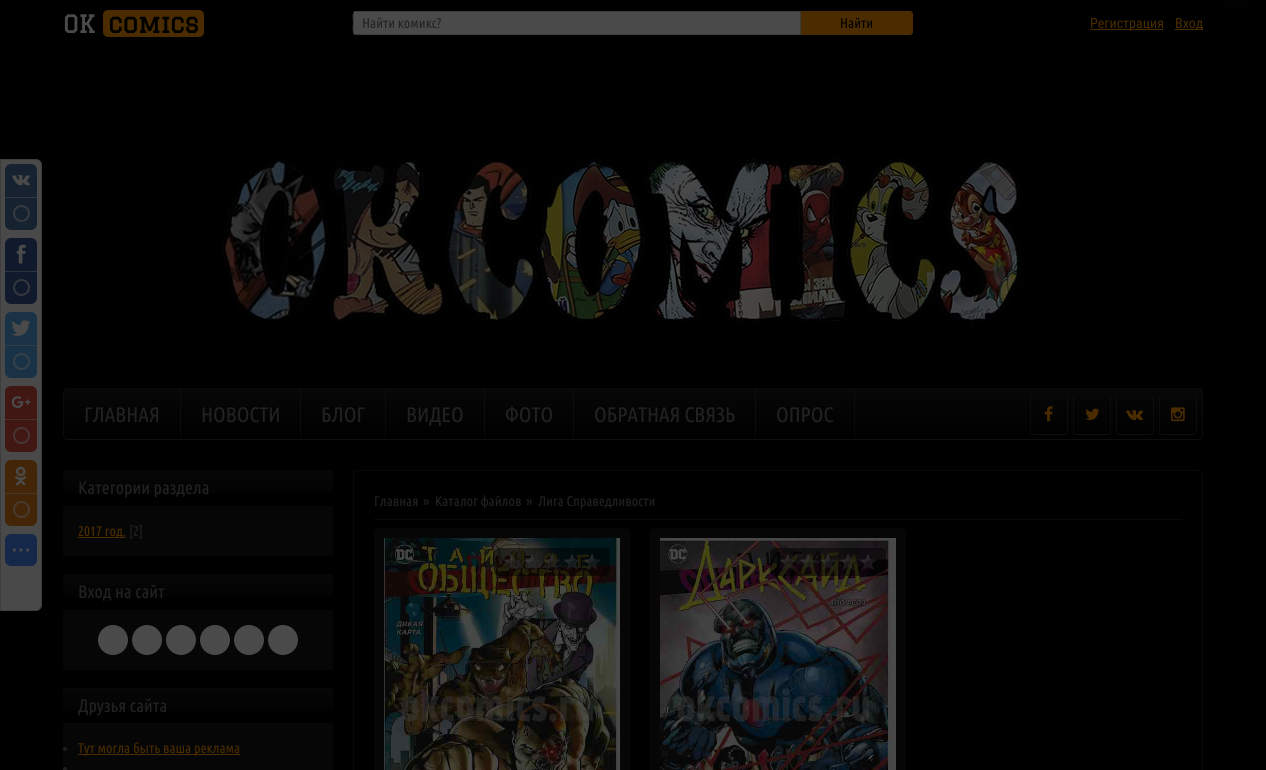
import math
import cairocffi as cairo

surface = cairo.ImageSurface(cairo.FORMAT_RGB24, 1266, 770)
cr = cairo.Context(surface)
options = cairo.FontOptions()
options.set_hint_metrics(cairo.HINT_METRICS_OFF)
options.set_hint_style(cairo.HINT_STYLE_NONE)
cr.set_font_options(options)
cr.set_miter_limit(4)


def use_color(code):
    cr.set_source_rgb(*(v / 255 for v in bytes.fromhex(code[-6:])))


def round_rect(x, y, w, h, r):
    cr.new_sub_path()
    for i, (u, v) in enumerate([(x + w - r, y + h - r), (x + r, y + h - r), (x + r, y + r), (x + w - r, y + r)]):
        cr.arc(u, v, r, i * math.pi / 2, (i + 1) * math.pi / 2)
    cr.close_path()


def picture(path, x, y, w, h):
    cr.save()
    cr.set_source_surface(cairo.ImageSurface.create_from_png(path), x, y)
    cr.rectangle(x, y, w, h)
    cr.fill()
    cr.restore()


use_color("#000000")
cr.paint()
use_color("#494949")
cr.new_path()
cr.move_to(0.5, 159.5)
cr.line_to(36, 159.5)
cr.curve_to(39, 159.5, 41.5, 162, 41.5, 165)
cr.line_to(41.5, 605)
cr.curve_to(41.5, 608, 39, 610.5, 36, 610.5)
cr.line_to(0.5, 610.5)
cr.close_path()
cr.fill_preserve()
use_color("#3d3d3d")
cr.set_line_width(1)
cr.stroke()
use_color("#16222f")
round_rect(5, 164, 32, 66, 6)
cr.fill()
picture("img1.png", 12, 175, 18, 11)
use_color("#30363d")
cr.rectangle(5, 197, 32, 1)
cr.fill()
cr.arc(21.5, 213.5, 7.5, 0, 2 * math.pi)
use_color("#353a3f")
cr.set_line_width(2)
cr.stroke()
use_color("#111a2c")
round_rect(5, 238, 32, 66, 6)
cr.fill()
picture("img2.png", 16, 244, 10, 20)
use_color("#2e323b")
cr.rectangle(5, 271, 32, 1)
cr.fill()
cr.arc(21.5, 287.5, 7.5, 0, 2 * math.pi)
use_color("#33373e")
cr.stroke()
use_color("#193245")
round_rect(5, 312, 32, 66, 6)
cr.fill()
picture("img3.png", 11, 320, 20, 16)
use_color("#313e48")
cr.rectangle(5, 345, 32, 1)
cr.fill()
cr.arc(21.5, 361.5, 7.5, 0, 2 * math.pi)
use_color("#364048")
cr.stroke()
use_color("#401713")
round_rect(5, 386, 32, 66, 6)
cr.fill()
picture("img4.png", 11, 396, 20, 12)
use_color("#45302e")
cr.rectangle(5, 419, 32, 1)
cr.fill()
cr.arc(21.5, 435.5, 7.5, 0, 2 * math.pi)
use_color("#463534")
cr.stroke()
use_color("#432507")
round_rect(5, 460, 32, 66, 6)
cr.fill()
picture("img5.png", 15, 466, 12, 20)
use_color("#463728")
cr.rectangle(5, 493, 32, 1)
cr.fill()
cr.arc(21.5, 509.5, 7.5, 0, 2 * math.pi)
use_color("#473b2f")
cr.stroke()
use_color("#152849")
round_rect(5, 534, 32, 32, 6)
cr.fill()
picture("img6.png", 12, 548, 18, 4)
picture("img7.png", 214, 0, 1034, 424)
cr.select_font_face("Graduate", cairo.FONT_SLANT_NORMAL, cairo.FONT_WEIGHT_BOLD)
cr.set_font_size(24)
use_color("#4a4a4a")
cr.move_to(63, 33)
cr.show_text("OK")
use_color("#4a2c00")
round_rect(103, 10, 101, 27, 5)
cr.fill()
use_color("#000000")
cr.move_to(108, 33)
cr.show_text("comics")
use_color("#4a4a4a")
cr.new_path()
cr.move_to(356, 11)
cr.line_to(801, 11)
cr.line_to(801, 35)
cr.line_to(356, 35)
cr.curve_to(354.5, 35, 353, 33.5, 353, 32)
cr.line_to(353, 14)
cr.curve_to(353, 12.5, 354.5, 11, 356, 11)
cr.close_path()
cr.fill()
use_color("#3b3b3b")
cr.set_fill_rule(cairo.FILL_RULE_EVEN_ODD)
cr.new_path()
cr.move_to(356, 11)
cr.curve_to(351, 11, 353, 20, 353, 23)
cr.curve_to(353, 26, 351, 35, 356, 35)
cr.line_to(801, 35)
cr.line_to(801, 11)
cr.close_path()
cr.move_to(354, 12)
cr.line_to(354, 34)
cr.line_to(800, 34)
cr.line_to(800, 12)
cr.close_path()
cr.fill()
cr.select_font_face("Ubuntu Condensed")
cr.set_font_size(14)
use_color("#222222")
cr.move_to(362, 28)
cr.show_text("Найти комикс?")
use_color("#4a2c00")
cr.new_path()
cr.move_to(801, 11)
cr.line_to(910, 11)
cr.curve_to(911.5, 11, 913, 12.5, 913, 14)
cr.line_to(913, 32)
cr.curve_to(913, 33.5, 911.5, 35, 910, 35)
cr.line_to(801, 35)
cr.close_path()
cr.fill()
use_color("#000000")
cr.move_to(840, 28)
cr.show_text("Найти")
use_color("#4a2c00")
cr.rectangle(1090, 29, 73, 1)
cr.fill()
cr.select_font_face("Roboto Condensed")
cr.move_to(1090, 28)
cr.show_text("Регистрация")
cr.rectangle(1175, 29, 28, 1)
cr.fill()
cr.move_to(1175, 28)
cr.show_text("Вход")
cr.save()
cr.set_fill_rule(cairo.FILL_RULE_WINDING)
round_rect(63, 388, 1140, 52, 5)
cr.clip()
gradient = cairo.LinearGradient(633, 389, 633, 439)
gradient.add_color_stop_rgba(0, 0.027, 0.027, 0.027, 1)
gradient.add_color_stop_rgba(1, 0, 0, 0, 1)
cr.set_source(gradient)
cr.rectangle(63, 389, 1140, 50)
cr.fill()
cr.restore()
gradient = cairo.LinearGradient(633, 389, 633, 439)
gradient.add_color_stop_rgba(0, 0.055, 0.055, 0.055, 1)
gradient.add_color_stop_rgba(1, 0.035, 0.035, 0.035, 1)
cr.set_source(gradient)
cr.rectangle(180, 389, 1, 50)
cr.fill()
cr.save()
cr.set_fill_rule(cairo.FILL_RULE_WINDING)
round_rect(63, 388, 1140, 52, 5)
cr.clip()
gradient = cairo.LinearGradient(633, 439, 633, 489)
gradient.add_color_stop_rgba(0, 0.027, 0.027, 0.027, 1)
gradient.add_color_stop_rgba(1, 0, 0, 0, 1)
cr.set_source(gradient)
cr.rectangle(63, 439, 1140, 1)
cr.fill()
cr.restore()
round_rect(63.5, 388.5, 1139, 51, 4.5)
cr.set_source_rgba(0.118, 0.118, 0.118, 0.3)
cr.set_line_width(1)
cr.stroke()
cr.select_font_face("Ubuntu Condensed")
cr.set_font_size(21)
use_color("#222222")
cr.move_to(84, 422)
cr.show_text("ГЛАВНАЯ")
cr.move_to(201, 422)
cr.show_text("НОВОСТИ")
cr.set_source_rgba(0.118, 0.118, 0.118, 0.3)
cr.rectangle(300, 389, 1, 50)
cr.fill()
use_color("#222222")
cr.move_to(321, 422)
cr.show_text("БЛОГ")
cr.set_source_rgba(0.118, 0.118, 0.118, 0.3)
cr.rectangle(385, 389, 1, 50)
cr.fill()
use_color("#222222")
cr.move_to(406, 422)
cr.show_text("ВИДЕО")
cr.set_source_rgba(0.118, 0.118, 0.118, 0.3)
cr.rectangle(484, 389, 1, 50)
cr.fill()
use_color("#222222")
cr.move_to(505, 422)
cr.show_text("ФОТО")
cr.set_source_rgba(0.118, 0.118, 0.118, 0.3)
cr.rectangle(573, 389, 1, 50)
cr.fill()
use_color("#222222")
cr.move_to(594, 422)
cr.show_text("ОБРАТНАЯ СВЯЗЬ")
cr.set_source_rgba(0.118, 0.118, 0.118, 0.3)
cr.rectangle(854, 389, 1, 50)
cr.fill()
cr.rectangle(755, 389, 1, 50)
cr.fill()
use_color("#222222")
cr.move_to(776, 422)
cr.show_text("ОПРОС")
cr.save()
cr.set_fill_rule(cairo.FILL_RULE_WINDING)
round_rect(1030, 394, 38, 41, 3)
cr.clip()
gradient = cairo.LinearGradient(1049, 356, 1049, 395)
gradient.add_color_stop_rgba(0, 0.027, 0.027, 0.027, 1)
gradient.add_color_stop_rgba(1, 0, 0, 0, 1)
cr.set_source(gradient)
cr.rectangle(1030, 394, 38, 1)
cr.fill()
gradient = cairo.LinearGradient(1049, 434, 1049, 473)
gradient.add_color_stop_rgba(0, 0.027, 0.027, 0.027, 1)
gradient.add_color_stop_rgba(1, 0, 0, 0, 1)
cr.set_source(gradient)
cr.rectangle(1030, 434, 38, 1)
cr.fill()
cr.restore()
round_rect(1030.5, 394.5, 37, 40, 2.5)
cr.set_source_rgba(0.118, 0.118, 0.118, 0.3)
cr.stroke()
picture("img8.png", 1044, 406, 9, 16)
cr.save()
cr.set_fill_rule(cairo.FILL_RULE_WINDING)
round_rect(1073, 394, 38, 41, 3)
cr.clip()
gradient = cairo.LinearGradient(1092, 356, 1092, 395)
gradient.add_color_stop_rgba(0, 0.027, 0.027, 0.027, 1)
gradient.add_color_stop_rgba(1, 0, 0, 0, 1)
cr.set_source(gradient)
cr.rectangle(1073, 394, 38, 1)
cr.fill()
gradient = cairo.LinearGradient(1092, 434, 1092, 473)
gradient.add_color_stop_rgba(0, 0.027, 0.027, 0.027, 1)
gradient.add_color_stop_rgba(1, 0, 0, 0, 1)
cr.set_source(gradient)
cr.rectangle(1073, 434, 38, 1)
cr.fill()
cr.restore()
round_rect(1073.5, 394.5, 37, 40, 2.5)
cr.stroke()
picture("img9.png", 1085, 408, 15, 12)
cr.save()
cr.set_fill_rule(cairo.FILL_RULE_WINDING)
round_rect(1116, 394, 38, 41, 3)
cr.clip()
gradient = cairo.LinearGradient(1135, 356, 1135, 395)
gradient.add_color_stop_rgba(0, 0.027, 0.027, 0.027, 1)
gradient.add_color_stop_rgba(1, 0, 0, 0, 1)
cr.set_source(gradient)
cr.rectangle(1116, 394, 38, 1)
cr.fill()
gradient = cairo.LinearGradient(1135, 434, 1135, 473)
gradient.add_color_stop_rgba(0, 0.027, 0.027, 0.027, 1)
gradient.add_color_stop_rgba(1, 0, 0, 0, 1)
cr.set_source(gradient)
cr.rectangle(1116, 434, 38, 1)
cr.fill()
cr.restore()
round_rect(1116.5, 394.5, 37, 40, 2.5)
cr.stroke()
picture("img10.png", 1126, 410, 18, 10)
cr.save()
cr.set_fill_rule(cairo.FILL_RULE_WINDING)
round_rect(1159, 394, 38, 41, 3)
cr.clip()
gradient = cairo.LinearGradient(1178, 356, 1178, 395)
gradient.add_color_stop_rgba(0, 0.027, 0.027, 0.027, 1)
gradient.add_color_stop_rgba(1, 0, 0, 0, 1)
cr.set_source(gradient)
cr.rectangle(1159, 394, 38, 1)
cr.fill()
gradient = cairo.LinearGradient(1178, 434, 1178, 473)
gradient.add_color_stop_rgba(0, 0.027, 0.027, 0.027, 1)
gradient.add_color_stop_rgba(1, 0, 0, 0, 1)
cr.set_source(gradient)
cr.rectangle(1159, 434, 38, 1)
cr.fill()
cr.restore()
round_rect(1159.5, 394.5, 37, 40, 2.5)
cr.stroke()
picture("img11.png", 1171, 407, 14, 15)
gradient = cairo.LinearGradient(198, 470, 198, 506)
gradient.add_color_stop_rgba(0, 0.027, 0.027, 0.027, 1)
gradient.add_color_stop_rgba(1, 0, 0, 0, 1)
cr.set_source(gradient)
cr.rectangle(63, 470, 270, 23)
cr.fill()
cr.set_font_size(18)
use_color("#222222")
cr.move_to(78, 494)
cr.show_text("Категории раздела")
use_color("#060606")
cr.rectangle(63, 506, 270, 50)
cr.fill()
use_color("#4a2c00")
cr.rectangle(78, 537, 48, 1)
cr.fill()
cr.set_font_size(14)
cr.move_to(78, 536)
cr.show_text("2017 год.")
use_color("#222222")
cr.move_to(129, 536)
cr.show_text("[2]")
gradient = cairo.LinearGradient(198, 574, 198, 610)
gradient.add_color_stop_rgba(0, 0.027, 0.027, 0.027, 1)
gradient.add_color_stop_rgba(1, 0, 0, 0, 1)
cr.set_source(gradient)
cr.rectangle(63, 574, 270, 23)
cr.fill()
cr.set_font_size(18)
use_color("#222222")
cr.move_to(78, 598)
cr.show_text("Вход на сайт")
use_color("#060606")
cr.rectangle(63, 610, 270, 60)
cr.fill()
use_color("#4a4a4a")
cr.arc(113, 640, 15, 0, 2 * math.pi)
cr.fill()
cr.arc(147, 640, 15, 0, 2 * math.pi)
cr.fill()
cr.arc(181, 640, 15, 0, 2 * math.pi)
cr.fill()
cr.arc(215, 640, 15, 0, 2 * math.pi)
cr.fill()
cr.arc(249, 640, 15, 0, 2 * math.pi)
cr.fill()
cr.arc(283, 640, 15, 0, 2 * math.pi)
cr.fill()
gradient = cairo.LinearGradient(198, 688, 198, 723)
gradient.add_color_stop_rgba(0, 0.027, 0.027, 0.027, 1)
gradient.add_color_stop_rgba(1, 0, 0, 0, 1)
cr.set_source(gradient)
cr.rectangle(63, 688, 270, 23)
cr.fill()
use_color("#222222")
cr.move_to(78, 712)
cr.show_text("Друзья сайта")
use_color("#060606")
cr.rectangle(63, 723, 270, 47)
cr.fill()
use_color("#1e1e1e")
cr.arc(65, 749, 2, 0, 2 * math.pi)
cr.fill()
use_color("#4a2c00")
cr.rectangle(78, 754, 162, 1)
cr.fill()
cr.set_font_size(14)
cr.move_to(78, 753)
cr.show_text("Тут могла быть ваша реклама")
use_color("#1e1e1e")
cr.new_path()
cr.arc(65, 769, 2, 0, 2 * math.pi)
cr.fill()
round_rect(353.5, 470.5, 849, 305, 4.5)
use_color("#090909")
cr.stroke()
cr.rectangle(374, 519, 808, 1)
cr.fill()
use_color("#222222")
cr.move_to(374, 506)
cr.show_text("Главная")
cr.move_to(423, 506)
cr.show_text("»")
cr.move_to(435, 506)
cr.show_text("Каталог файлов")
cr.move_to(526, 506)
cr.show_text("»")
cr.move_to(538, 506)
cr.show_text("Лига Справедливости")
use_color("#060606")
round_rect(374, 528, 256, 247, 5)
cr.fill()
picture("img12.png", 384, 538, 236, 232)
cr.set_source_rgba(0, 0, 0, 0.5)
round_rect(494, 548, 116, 28, 5)
cr.fill()
picture("img13.png", 502, 552, 100, 19)
use_color("#060606")
round_rect(650, 528, 256, 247, 5)
cr.fill()
picture("img14.png", 660, 538, 236, 232)
cr.set_source_rgba(0, 0, 0, 0.5)
round_rect(770, 548, 116, 28, 5)
cr.fill()
picture("img15.png", 779, 552, 98, 19)
surface.write_to_png("result.png")
